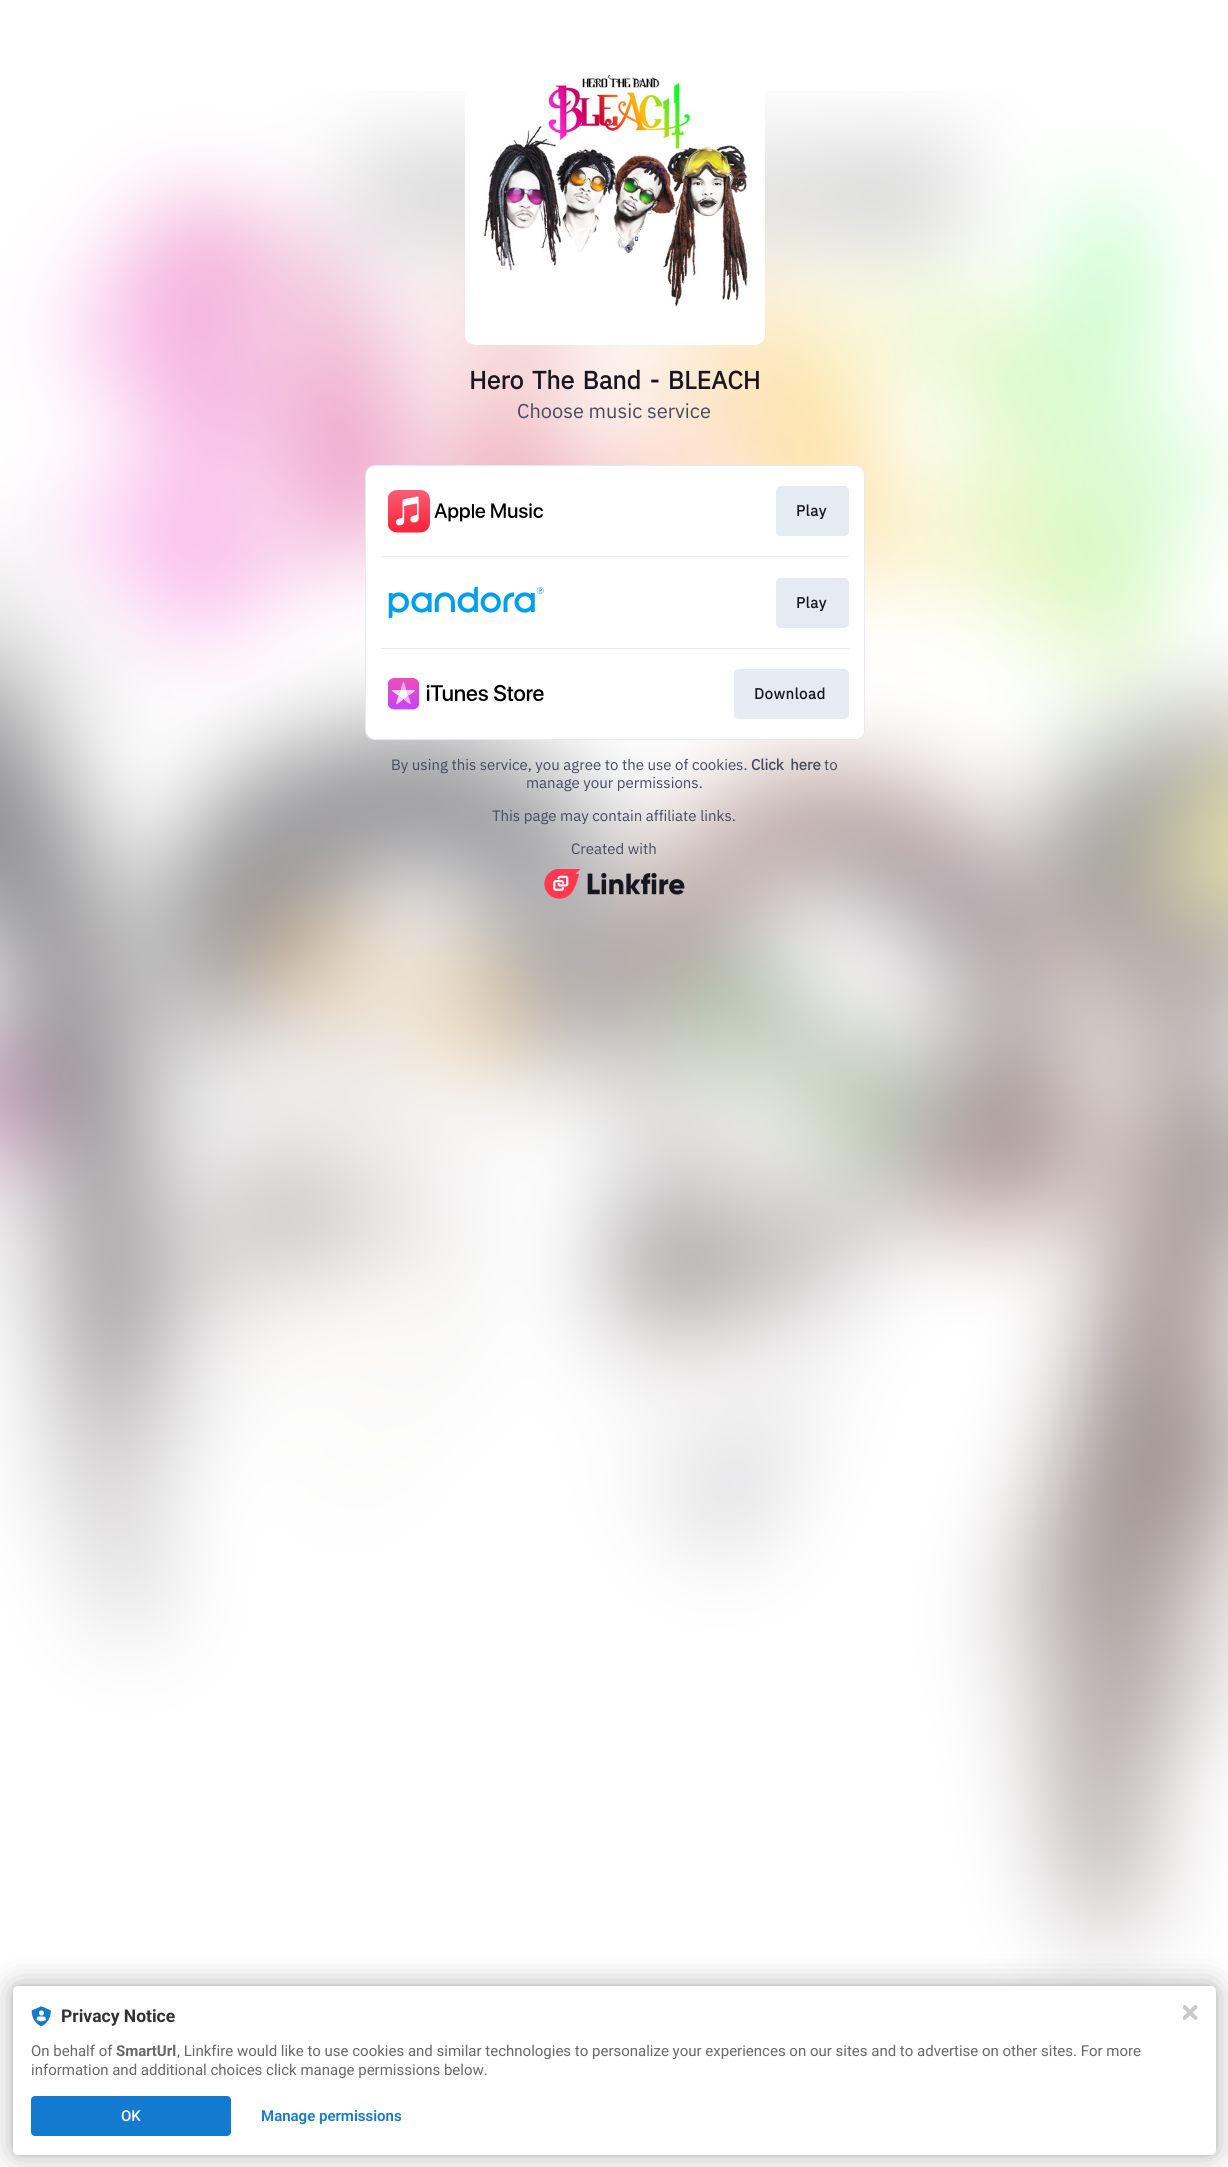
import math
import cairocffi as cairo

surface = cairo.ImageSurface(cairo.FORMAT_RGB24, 1228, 2167)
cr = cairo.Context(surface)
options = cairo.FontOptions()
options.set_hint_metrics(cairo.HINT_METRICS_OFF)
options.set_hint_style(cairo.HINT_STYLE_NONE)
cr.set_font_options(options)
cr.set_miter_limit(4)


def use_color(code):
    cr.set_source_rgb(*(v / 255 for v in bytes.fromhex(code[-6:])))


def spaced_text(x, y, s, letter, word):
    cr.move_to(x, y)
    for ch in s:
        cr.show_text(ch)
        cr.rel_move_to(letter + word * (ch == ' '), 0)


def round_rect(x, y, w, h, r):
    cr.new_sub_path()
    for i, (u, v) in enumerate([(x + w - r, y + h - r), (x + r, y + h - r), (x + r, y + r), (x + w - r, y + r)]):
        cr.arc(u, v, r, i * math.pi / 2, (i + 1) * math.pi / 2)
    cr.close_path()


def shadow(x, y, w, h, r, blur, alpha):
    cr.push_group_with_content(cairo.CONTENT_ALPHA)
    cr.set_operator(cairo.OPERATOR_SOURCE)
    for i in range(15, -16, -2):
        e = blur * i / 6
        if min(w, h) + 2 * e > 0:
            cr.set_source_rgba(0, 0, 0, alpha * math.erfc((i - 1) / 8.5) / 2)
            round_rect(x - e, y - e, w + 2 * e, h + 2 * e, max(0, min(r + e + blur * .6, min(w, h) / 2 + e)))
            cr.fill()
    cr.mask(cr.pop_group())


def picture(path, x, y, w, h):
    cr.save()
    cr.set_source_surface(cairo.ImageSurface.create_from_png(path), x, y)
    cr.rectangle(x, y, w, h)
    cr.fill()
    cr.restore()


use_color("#ffffff")
cr.paint()
picture("img1.png", 0, 91, 1228, 1904)
picture("img2.png", 465, 74, 300, 271)
cr.select_font_face("IBM Plex Sans", cairo.FONT_SLANT_NORMAL, cairo.FONT_WEIGHT_BOLD)
cr.set_font_size(25)
use_color("#181721")
spaced_text(469, 389, "Hero The Band - BLEACH", 0, 2.5)
cr.select_font_face("IBM Plex Sans")
cr.set_font_size(20)
use_color("#454b5f")
cr.move_to(517, 418)
cr.show_text("Choose music service")
round_rect(365.5, 465.5, 499, 274, 9.5)
use_color("#e6eaf2")
cr.set_line_width(1)
cr.stroke()
use_color("#ffffff")
round_rect(366, 466, 498, 273, 9)
cr.fill()
picture("img3.png", 388, 490, 155, 43)
use_color("#e6eaf2")
round_rect(776, 486, 73, 50, 5)
cr.fill()
cr.select_font_face("IBM Plex Sans", cairo.FONT_SLANT_NORMAL, cairo.FONT_WEIGHT_BOLD)
cr.set_font_size(15)
use_color("#181721")
spaced_text(796, 516, "Play", 0.5, 0)
use_color("#e6eaf2")
cr.rectangle(381, 556, 468, 1)
cr.fill()
picture("img4.png", 388, 586, 156, 33)
round_rect(776, 578, 73, 50, 5)
cr.fill()
use_color("#181721")
spaced_text(796, 608, "Play", 0.5, 0)
use_color("#e6eaf2")
cr.rectangle(381, 648, 468, 1)
cr.fill()
picture("img5.png", 388, 678, 156, 32)
round_rect(734, 669, 115, 50, 5)
cr.fill()
use_color("#181721")
spaced_text(754, 699, "Download", 0.5, 0)
cr.select_font_face("IBM Plex Sans")
use_color("#454b5f")
cr.move_to(391, 770)
cr.show_text("By using this service, you agree to the use of cookies.")
cr.select_font_face("IBM Plex Sans", cairo.FONT_SLANT_NORMAL, cairo.FONT_WEIGHT_BOLD)
spaced_text(751, 770, "Click here", 0, 3)
cr.select_font_face("IBM Plex Sans")
cr.move_to(824, 770)
cr.show_text("to")
cr.move_to(526, 788)
cr.show_text("manage your permissions.")
cr.move_to(492, 821)
cr.show_text("This page may contain affiliate links.")
cr.move_to(571, 854)
cr.show_text("Created with")
picture("img6.png", 544, 869, 141, 30)
use_color("#000000")
shadow(13, 1986, 1203, 169, 5, 2.5, 0.12)
shadow(13, 1986, 1203, 169, 5, 15, 0.3)
use_color("#ffffff")
round_rect(13, 1986, 1203, 169, 5)
cr.fill()
picture("img7.png", 31, 2006, 20, 20)
cr.select_font_face("Roboto", cairo.FONT_SLANT_NORMAL, cairo.FONT_WEIGHT_BOLD)
cr.set_font_size(17.5)
use_color("#323232")
cr.move_to(61, 2022)
cr.show_text("Privacy Notice")
cr.select_font_face("Roboto")
cr.set_font_size(15)
use_color("#686868")
cr.move_to(31, 2056)
cr.show_text("On behalf of")
cr.select_font_face("Roboto", cairo.FONT_SLANT_NORMAL, cairo.FONT_WEIGHT_BOLD)
cr.move_to(116, 2056)
cr.show_text("SmartUrl")
cr.select_font_face("Roboto")
cr.move_to(177, 2056)
cr.show_text(", Linkfire would like to use cookies and similar technologies to personalize your experiences on our sites and to advertise on other sites. For more")
cr.move_to(31, 2075)
cr.show_text("information and additional choices click manage permissions below.")
use_color("#137bcf")
round_rect(31, 2096, 200, 40, 4)
cr.fill()
cr.select_font_face("Roboto Medium")
use_color("#ffffff")
cr.move_to(121, 2121)
cr.show_text("OK")
cr.select_font_face("Roboto SemiBold")
use_color("#137bcf")
cr.move_to(261, 2121)
cr.show_text("Manage permissions")
picture("img8.png", 1183, 2005, 15, 15)
surface.write_to_png("result.png")
